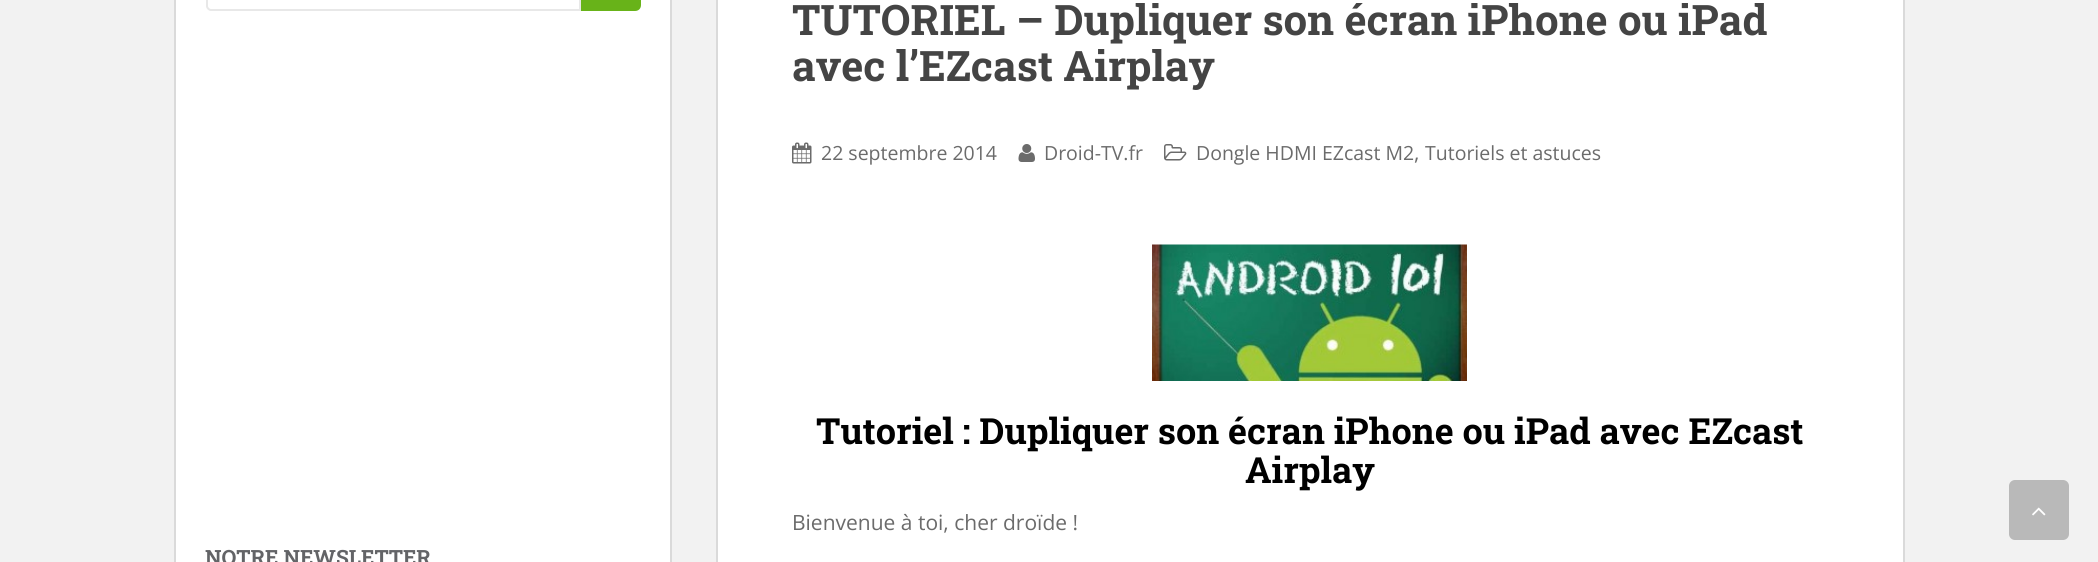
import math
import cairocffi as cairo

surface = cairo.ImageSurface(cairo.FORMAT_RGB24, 2098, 562)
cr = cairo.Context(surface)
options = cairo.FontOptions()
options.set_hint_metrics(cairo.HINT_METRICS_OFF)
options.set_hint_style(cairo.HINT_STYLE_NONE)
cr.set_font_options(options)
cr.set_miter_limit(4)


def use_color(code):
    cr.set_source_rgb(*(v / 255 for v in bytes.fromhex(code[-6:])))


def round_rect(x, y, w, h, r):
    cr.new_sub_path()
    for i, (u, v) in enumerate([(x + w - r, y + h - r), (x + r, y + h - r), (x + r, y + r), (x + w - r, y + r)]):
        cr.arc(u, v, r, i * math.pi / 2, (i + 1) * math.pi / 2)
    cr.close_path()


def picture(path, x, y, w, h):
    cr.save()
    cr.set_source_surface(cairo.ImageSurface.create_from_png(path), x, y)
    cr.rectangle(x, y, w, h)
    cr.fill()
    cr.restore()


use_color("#f2f2f2")
cr.paint()
use_color("#ffffff")
cr.rectangle(717, -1, 1187, 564)
cr.fill_preserve()
use_color("#dadada")
cr.stroke()
cr.select_font_face("Roboto Slab", cairo.FONT_SLANT_NORMAL, cairo.FONT_WEIGHT_BOLD)
cr.set_font_size(42)
use_color("#444444")
cr.move_to(792, 35)
cr.show_text("TUTORIEL – Dupliquer son écran iPhone ou iPad")
cr.move_to(792, 81)
cr.show_text("avec l’EZcast Airplay")
picture("img1.png", 792, 142, 20, 22)
cr.select_font_face("Open Sans")
cr.set_font_size(19.5)
use_color("#6b6b6b")
cr.move_to(821, 160)
cr.show_text("22 septembre 2014")
picture("img2.png", 1018, 144, 17, 18)
cr.move_to(1044, 160)
cr.show_text("Droid-TV.fr")
picture("img3.png", 1164, 144, 23, 17)
cr.move_to(1196, 160)
cr.show_text("Dongle HDMI EZcast M2")
cr.set_font_size(21)
cr.move_to(1414, 160)
cr.show_text(",")
cr.set_font_size(19.5)
cr.move_to(1425, 160)
cr.show_text("Tutoriels et astuces")
picture("img4.png", 1152, 244, 315, 137)
cr.select_font_face("Roboto Slab", cairo.FONT_SLANT_NORMAL, cairo.FONT_WEIGHT_BOLD)
cr.set_font_size(36)
use_color("#000000")
cr.move_to(816, 444)
cr.show_text("Tutoriel : Dupliquer son écran iPhone ou iPad avec EZcast")
cr.move_to(1245, 483)
cr.show_text("Airplay")
cr.select_font_face("Open Sans")
cr.set_font_size(21)
use_color("#6b6b6b")
cr.move_to(792, 530)
cr.show_text("Bienvenue à toi, cher droïde !")
use_color("#ffffff")
cr.rectangle(175, -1, 496, 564)
cr.fill_preserve()
use_color("#dadada")
cr.stroke()
cr.new_path()
cr.move_to(211, -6)
cr.line_to(580, -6)
cr.line_to(580, 10)
cr.line_to(211, 10)
cr.curve_to(209, 10, 207, 8, 207, 6)
cr.line_to(207, -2)
cr.curve_to(207, -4, 209, -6, 211, -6)
cr.close_path()
use_color("#e8e8e8")
cr.stroke()
use_color("#68b319")
cr.new_path()
cr.move_to(582, -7)
cr.line_to(635, -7)
cr.curve_to(638, -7, 640, -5, 640, -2)
cr.line_to(640, 5)
cr.curve_to(640, 8, 638, 10, 635, 10)
cr.line_to(582, 10)
cr.close_path()
cr.fill_preserve()
cr.stroke()
cr.select_font_face("Roboto Slab", cairo.FONT_SLANT_NORMAL, cairo.FONT_WEIGHT_BOLD)
use_color("#636467")
cr.move_to(205, 565)
cr.show_text("NOTRE NEWSLETTER")
use_color("#b9b9b9")
round_rect(2009, 480, 60, 60, 6)
cr.fill()
picture("img5.png", 2032, 507, 14, 9)
surface.write_to_png("result.png")
